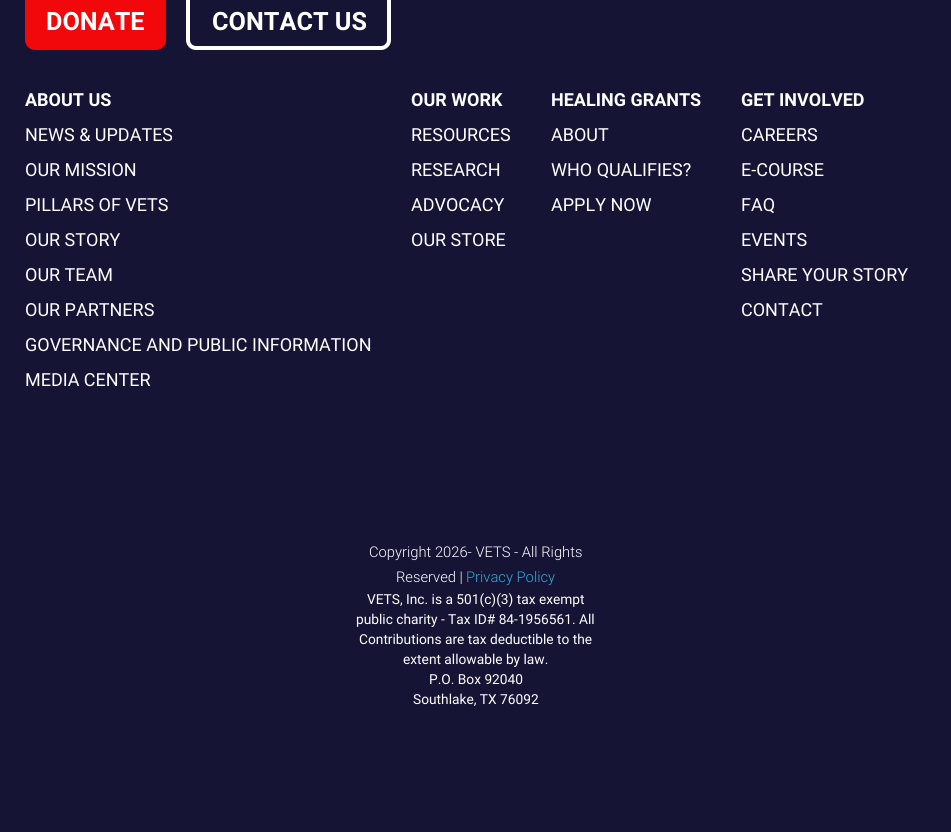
import math
import cairocffi as cairo

surface = cairo.ImageSurface(cairo.FORMAT_RGB24, 951, 832)
cr = cairo.Context(surface)
options = cairo.FontOptions()
options.set_hint_metrics(cairo.HINT_METRICS_OFF)
options.set_hint_style(cairo.HINT_STYLE_NONE)
cr.set_font_options(options)
cr.set_miter_limit(4)


def use_color(code):
    cr.set_source_rgb(*(v / 255 for v in bytes.fromhex(code[-6:])))


def round_rect(x, y, w, h, r):
    cr.new_sub_path()
    for i, (u, v) in enumerate([(x + w - r, y + h - r), (x + r, y + h - r), (x + r, y + r), (x + w - r, y + r)]):
        cr.arc(u, v, r, i * math.pi / 2, (i + 1) * math.pi / 2)
    cr.close_path()


use_color("#151435")
cr.paint()
use_color("#f2080b")
round_rect(25, -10, 141, 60, 10)
cr.fill()
cr.select_font_face("Roboto", cairo.FONT_SLANT_NORMAL, cairo.FONT_WEIGHT_BOLD)
cr.set_font_size(25.25)
use_color("#ffffff")
cr.move_to(46, 30)
cr.show_text("DONATE")
round_rect(188, -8, 201, 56, 8)
cr.set_line_width(4)
cr.stroke()
cr.move_to(212, 30)
cr.show_text("CONTACT US")
cr.set_font_size(18)
cr.move_to(25, 106)
cr.show_text("ABOUT US")
cr.select_font_face("Roboto")
cr.move_to(25, 141)
cr.show_text("NEWS & UPDATES")
cr.move_to(25, 176)
cr.show_text("OUR MISSION")
cr.move_to(25, 211)
cr.show_text("PILLARS OF VETS")
cr.move_to(25, 246)
cr.show_text("OUR STORY")
cr.move_to(25, 281)
cr.show_text("OUR TEAM")
cr.move_to(25, 316)
cr.show_text("OUR PARTNERS")
cr.move_to(25, 351)
cr.show_text("GOVERNANCE AND PUBLIC INFORMATION")
cr.move_to(25, 386)
cr.show_text("MEDIA CENTER")
cr.select_font_face("Roboto", cairo.FONT_SLANT_NORMAL, cairo.FONT_WEIGHT_BOLD)
cr.move_to(411, 106)
cr.show_text("OUR WORK")
cr.select_font_face("Roboto")
cr.move_to(411, 141)
cr.show_text("RESOURCES")
cr.move_to(411, 176)
cr.show_text("RESEARCH")
cr.move_to(411, 211)
cr.show_text("ADVOCACY")
cr.move_to(411, 246)
cr.show_text("OUR STORE")
cr.select_font_face("Roboto", cairo.FONT_SLANT_NORMAL, cairo.FONT_WEIGHT_BOLD)
cr.move_to(551, 106)
cr.show_text("HEALING GRANTS")
cr.select_font_face("Roboto")
cr.move_to(551, 141)
cr.show_text("ABOUT")
cr.move_to(551, 176)
cr.show_text("WHO QUALIFIES?")
cr.move_to(551, 211)
cr.show_text("APPLY NOW")
cr.select_font_face("Roboto", cairo.FONT_SLANT_NORMAL, cairo.FONT_WEIGHT_BOLD)
cr.move_to(741, 106)
cr.show_text("GET INVOLVED")
cr.select_font_face("Roboto")
cr.move_to(741, 141)
cr.show_text("CAREERS")
cr.move_to(741, 176)
cr.show_text("E-COURSE")
cr.move_to(741, 211)
cr.show_text("FAQ")
cr.move_to(741, 246)
cr.show_text("EVENTS")
cr.move_to(741, 281)
cr.show_text("SHARE YOUR STORY")
cr.move_to(741, 316)
cr.show_text("CONTACT")
cr.select_font_face("Roboto Light")
cr.set_font_size(14.75)
cr.move_to(369, 557)
cr.show_text("Copyright 2026- VETS - All Rights")
cr.move_to(396, 582)
cr.show_text("Reserved |")
use_color("#38a7d7")
cr.move_to(466, 582)
cr.show_text("Privacy Policy")
cr.select_font_face("Roboto")
cr.set_font_size(13.75)
use_color("#ffffff")
cr.move_to(367, 604)
cr.show_text("VETS, Inc. is a 501(c)(3) tax exempt")
cr.move_to(356, 624)
cr.show_text("public charity - Tax ID# 84-1956561. All")
cr.move_to(359, 644)
cr.show_text("Contributions are tax deductible to the")
cr.move_to(403, 664)
cr.show_text("extent allowable by law.")
cr.move_to(429, 684)
cr.show_text("P.O. Box 92040")
cr.move_to(413, 704)
cr.show_text("Southlake, TX 76092")
surface.write_to_png("result.png")
